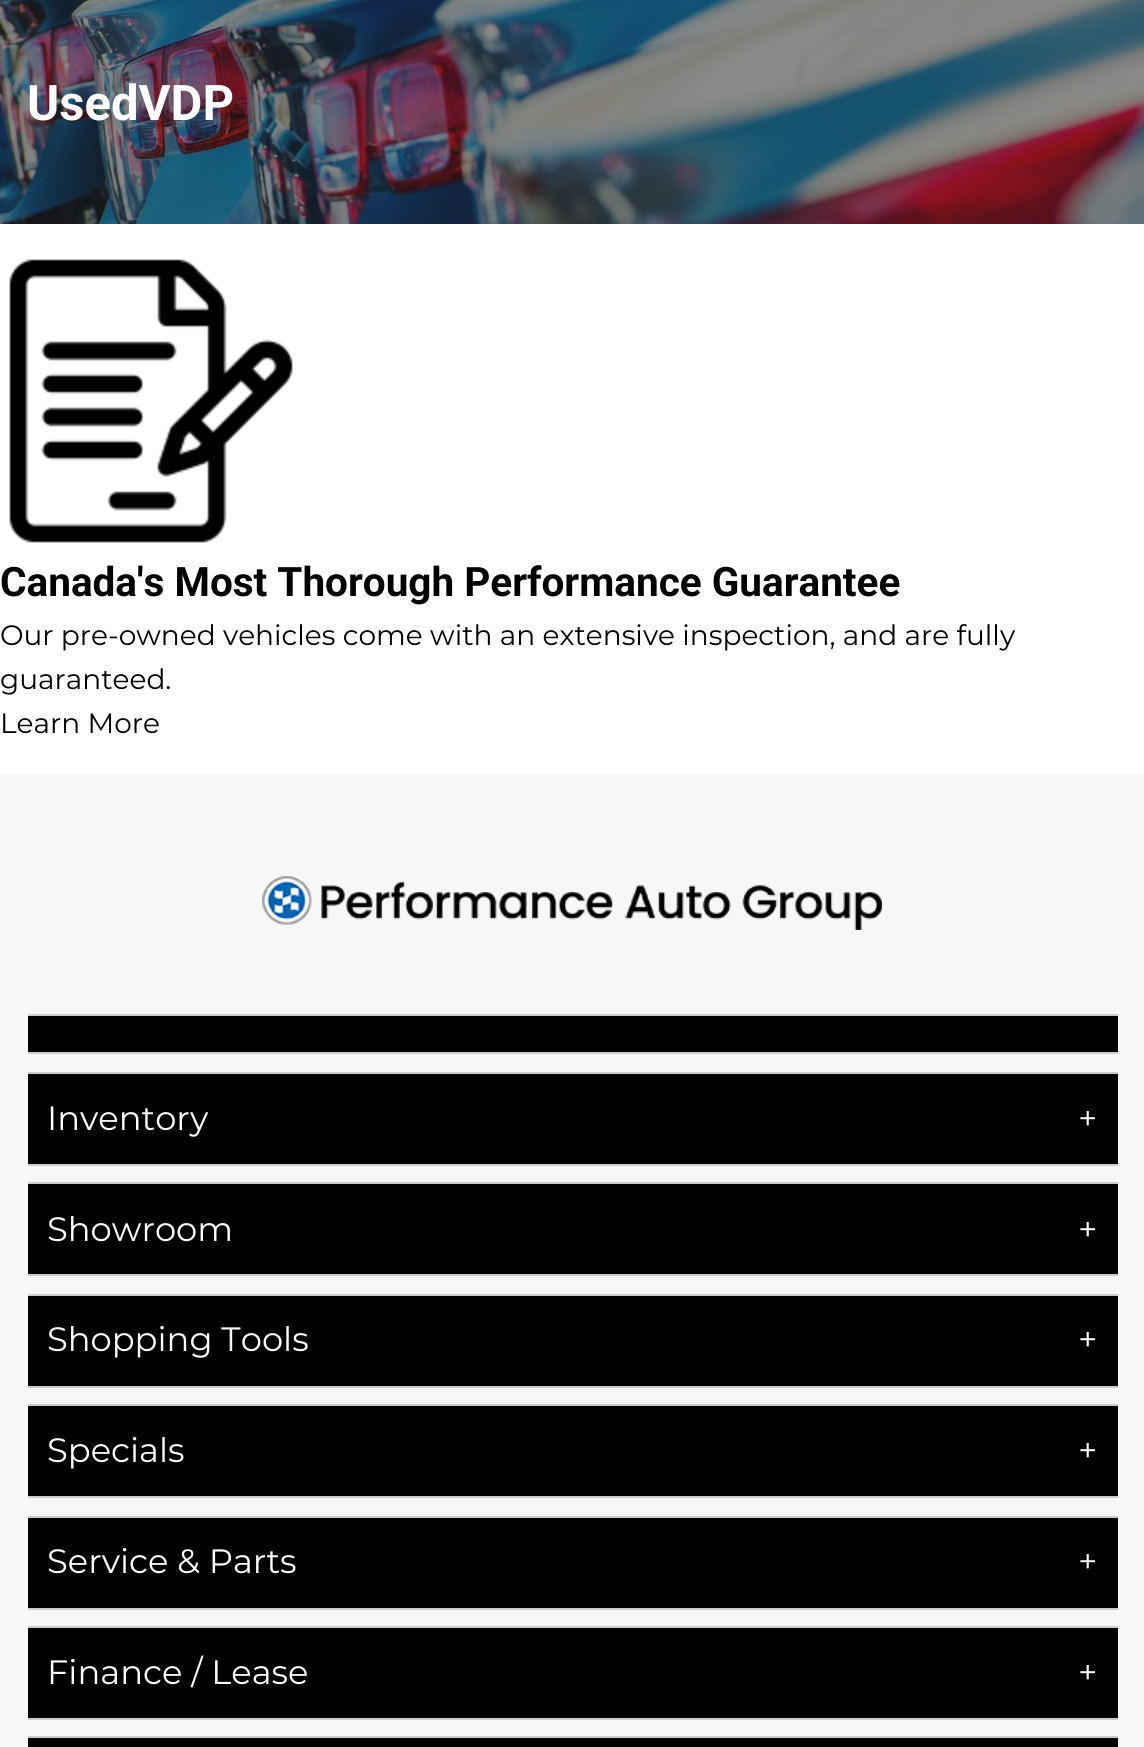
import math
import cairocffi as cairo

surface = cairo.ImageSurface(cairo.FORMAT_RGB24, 1144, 1747)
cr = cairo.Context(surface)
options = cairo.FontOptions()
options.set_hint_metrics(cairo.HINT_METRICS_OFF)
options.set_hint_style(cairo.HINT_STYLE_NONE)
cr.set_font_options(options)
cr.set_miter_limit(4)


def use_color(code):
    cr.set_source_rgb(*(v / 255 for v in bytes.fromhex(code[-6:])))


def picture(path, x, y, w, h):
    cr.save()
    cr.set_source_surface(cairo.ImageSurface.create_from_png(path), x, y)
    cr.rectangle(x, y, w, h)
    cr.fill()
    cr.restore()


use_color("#ffffff")
cr.paint()
picture("img1.png", 0, 0, 1144, 224)
cr.select_font_face("Roboto", cairo.FONT_SLANT_NORMAL, cairo.FONT_WEIGHT_BOLD)
cr.set_font_size(49)
use_color("#ffffff")
cr.move_to(27, 120)
cr.show_text("UsedVDP")
picture("img2.png", 9, 259, 284, 284)
cr.set_font_size(40.5)
use_color("#000000")
cr.move_to(0, 596)
cr.show_text("Canada's Most Thorough Performance Guarantee")
cr.select_font_face("Montserrat")
cr.set_font_size(28)
cr.move_to(0, 645)
cr.show_text("Our pre-owned vehicles come with an extensive inspection, and are fully")
cr.move_to(0, 689)
cr.show_text("guaranteed.")
cr.move_to(0, 733)
cr.show_text("Learn More")
use_color("#f7f7f7")
cr.rectangle(0, 774, 1144, 973)
cr.fill()
picture("img3.png", 262, 876, 620, 54)
use_color("#000000")
cr.rectangle(28, 1016, 1090, 36)
cr.fill()
use_color("#cccccc")
cr.rectangle(28, 1014, 1090, 2)
cr.fill()
cr.rectangle(28, 1052, 1090, 2)
cr.fill()
use_color("#000000")
cr.rectangle(28, 1074, 1090, 90)
cr.fill()
use_color("#cccccc")
cr.rectangle(28, 1072, 1090, 2)
cr.fill()
cr.rectangle(28, 1164, 1090, 2)
cr.fill()
cr.set_font_size(33.75)
use_color("#ffffff")
cr.move_to(47, 1130)
cr.show_text("Inventory")
cr.move_to(1078, 1130)
cr.show_text("+")
use_color("#000000")
cr.rectangle(28, 1184, 1090, 90)
cr.fill()
use_color("#cccccc")
cr.rectangle(28, 1182, 1090, 2)
cr.fill()
cr.rectangle(28, 1274, 1090, 2)
cr.fill()
use_color("#ffffff")
cr.move_to(47, 1241)
cr.show_text("Showroom")
cr.move_to(1078, 1241)
cr.show_text("+")
use_color("#000000")
cr.rectangle(28, 1296, 1090, 90)
cr.fill()
use_color("#cccccc")
cr.rectangle(28, 1294, 1090, 2)
cr.fill()
cr.rectangle(28, 1386, 1090, 2)
cr.fill()
use_color("#ffffff")
cr.move_to(47, 1351)
cr.show_text("Shopping Tools")
cr.move_to(1078, 1351)
cr.show_text("+")
use_color("#000000")
cr.rectangle(28, 1406, 1090, 90)
cr.fill()
use_color("#cccccc")
cr.rectangle(28, 1404, 1090, 2)
cr.fill()
cr.rectangle(28, 1496, 1090, 2)
cr.fill()
use_color("#ffffff")
cr.move_to(47, 1462)
cr.show_text("Specials")
cr.move_to(1078, 1462)
cr.show_text("+")
use_color("#000000")
cr.rectangle(28, 1518, 1090, 90)
cr.fill()
use_color("#cccccc")
cr.rectangle(28, 1516, 1090, 2)
cr.fill()
cr.rectangle(28, 1608, 1090, 2)
cr.fill()
use_color("#ffffff")
cr.move_to(47, 1573)
cr.show_text("Service & Parts")
cr.move_to(1078, 1573)
cr.show_text("+")
use_color("#000000")
cr.rectangle(28, 1628, 1090, 90)
cr.fill()
use_color("#cccccc")
cr.rectangle(28, 1626, 1090, 2)
cr.fill()
cr.rectangle(28, 1718, 1090, 2)
cr.fill()
use_color("#ffffff")
cr.move_to(47, 1684)
cr.show_text("Finance / Lease")
cr.move_to(1078, 1684)
cr.show_text("+")
use_color("#000000")
cr.rectangle(28, 1738, 1090, 9)
cr.fill()
use_color("#cccccc")
cr.rectangle(28, 1736, 1090, 2)
cr.fill()
surface.write_to_png("result.png")
